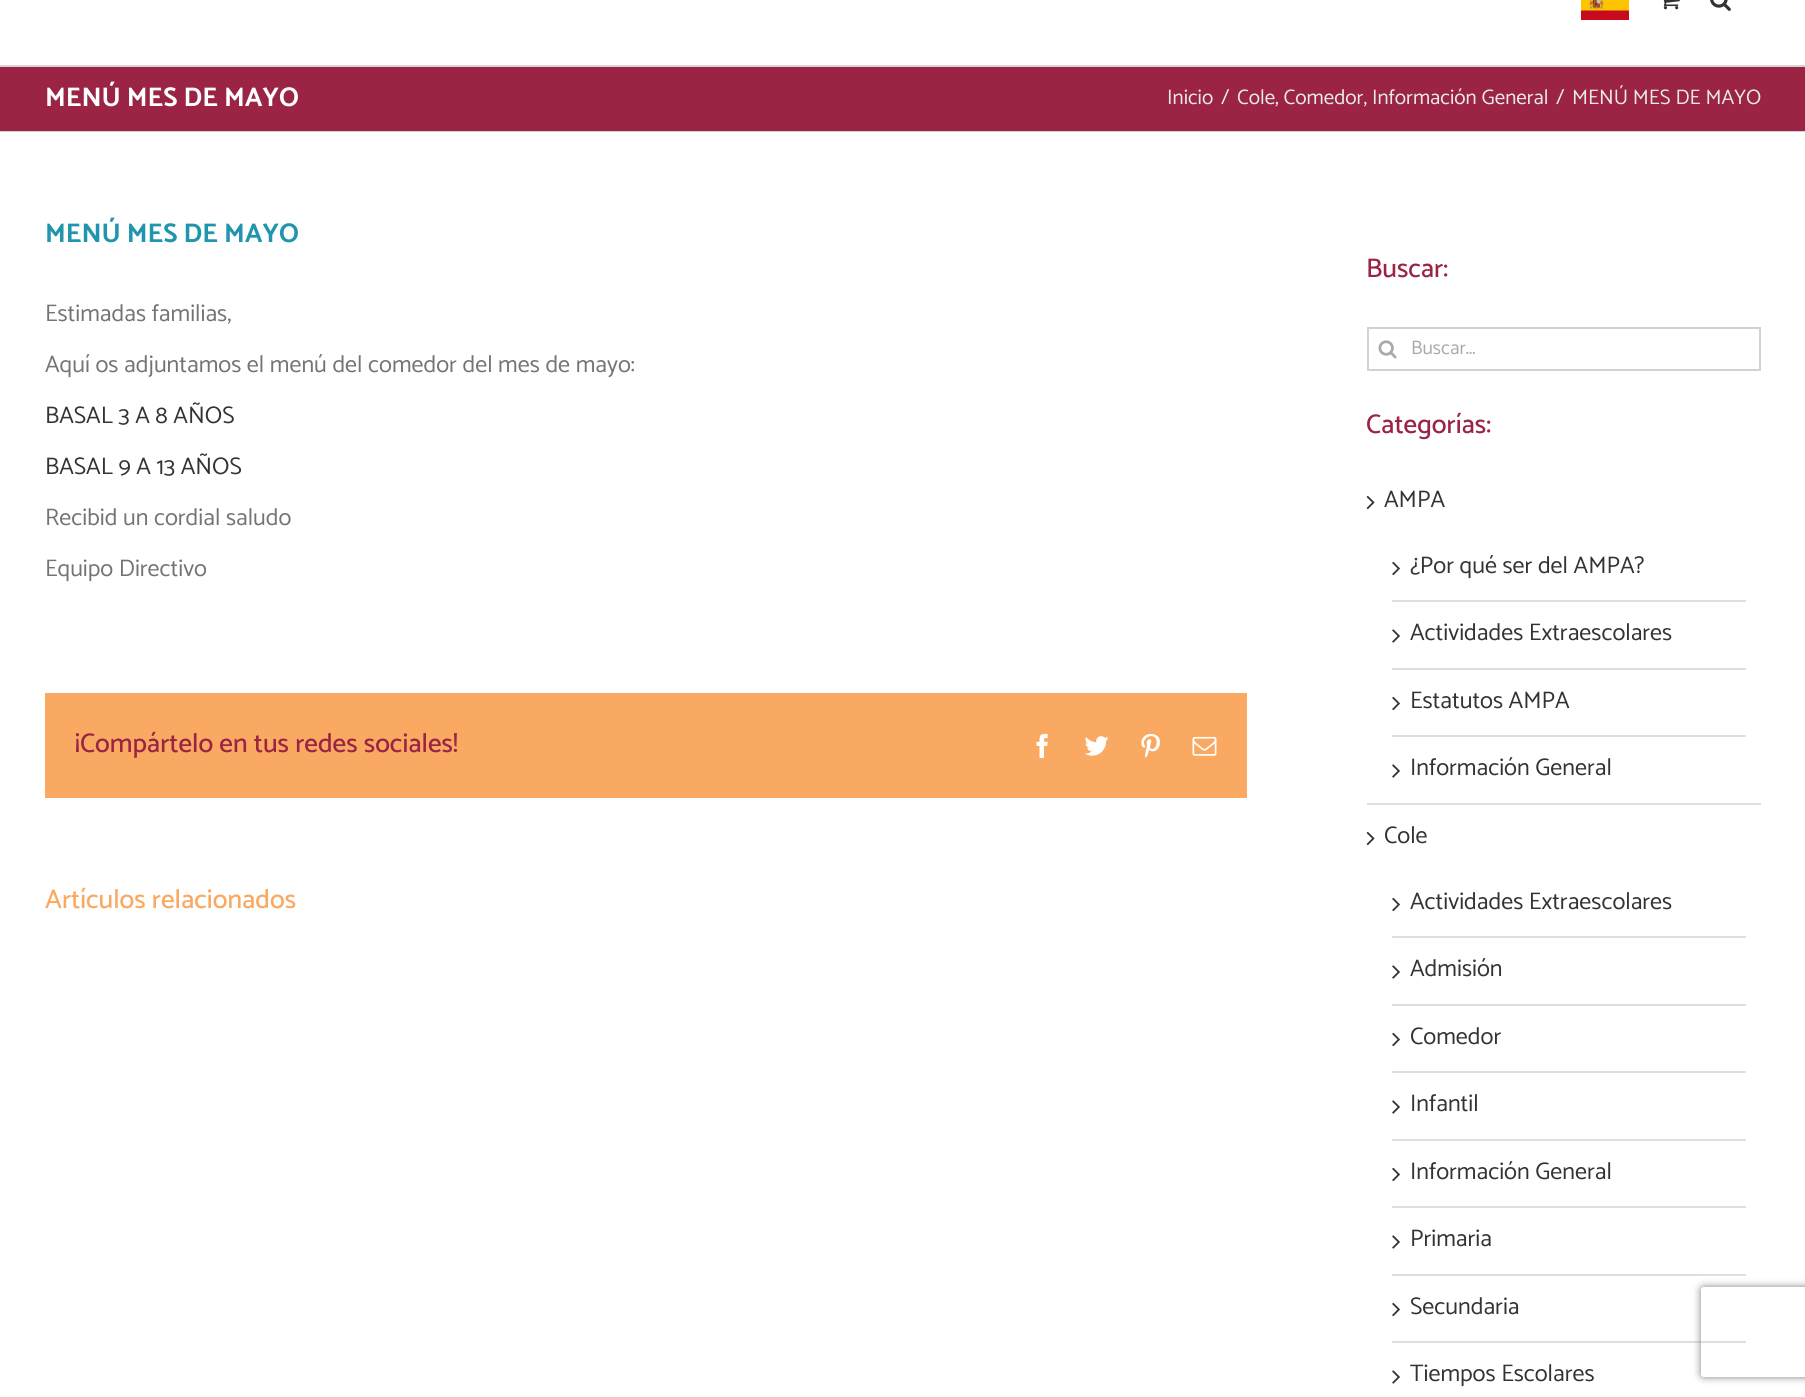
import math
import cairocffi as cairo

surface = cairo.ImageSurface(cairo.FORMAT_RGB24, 1805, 1397)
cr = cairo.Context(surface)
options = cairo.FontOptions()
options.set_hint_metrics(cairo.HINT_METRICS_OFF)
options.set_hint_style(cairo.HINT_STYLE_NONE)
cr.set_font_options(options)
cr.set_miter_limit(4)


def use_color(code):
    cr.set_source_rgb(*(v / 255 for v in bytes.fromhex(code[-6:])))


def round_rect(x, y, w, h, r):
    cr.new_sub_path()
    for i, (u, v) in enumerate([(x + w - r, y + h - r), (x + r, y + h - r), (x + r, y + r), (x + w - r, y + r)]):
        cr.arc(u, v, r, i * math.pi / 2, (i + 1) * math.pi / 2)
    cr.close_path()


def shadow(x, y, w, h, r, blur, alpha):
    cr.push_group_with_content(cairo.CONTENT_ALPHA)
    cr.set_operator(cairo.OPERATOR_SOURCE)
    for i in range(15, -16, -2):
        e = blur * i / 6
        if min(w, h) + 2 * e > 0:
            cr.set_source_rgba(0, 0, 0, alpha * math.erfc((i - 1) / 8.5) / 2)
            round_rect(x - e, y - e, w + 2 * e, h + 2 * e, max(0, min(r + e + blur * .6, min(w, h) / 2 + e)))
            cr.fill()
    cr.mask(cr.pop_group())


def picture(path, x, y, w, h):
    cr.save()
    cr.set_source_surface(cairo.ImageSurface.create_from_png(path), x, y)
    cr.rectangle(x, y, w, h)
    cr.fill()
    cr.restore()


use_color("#ffffff")
cr.paint()
picture("img1.png", 1581, 0, 48, 20)
picture("img2.png", 1663, 0, 17, 10)
picture("img3.png", 1710, 0, 21, 11)
use_color("#9b2445")
cr.rectangle(0, 67, 1805, 64)
cr.fill()
use_color("#d2d3d4")
cr.rectangle(0, 65, 1805, 2)
cr.fill()
cr.rectangle(0, 131, 1805, 1)
cr.fill()
cr.select_font_face("Catamaran", cairo.FONT_SLANT_NORMAL, cairo.FONT_WEIGHT_BOLD)
cr.set_font_size(27)
use_color("#ffffff")
cr.move_to(45, 106)
cr.show_text("MENÚ MES DE MAYO")
cr.select_font_face("Catamaran")
cr.set_font_size(21)
use_color("#eaeaea")
cr.move_to(1167, 104)
cr.show_text("Inicio")
cr.move_to(1221, 104)
cr.show_text("/")
cr.move_to(1237, 104)
cr.show_text("Cole, Comedor, Información General")
cr.move_to(1556, 104)
cr.show_text("/")
cr.move_to(1572, 104)
cr.show_text("MENÚ MES DE MAYO")
cr.select_font_face("Catamaran", cairo.FONT_SLANT_NORMAL, cairo.FONT_WEIGHT_BOLD)
cr.set_font_size(27)
use_color("#2195ad")
cr.move_to(45, 242)
cr.show_text("MENÚ MES DE MAYO")
cr.select_font_face("Catamaran")
cr.set_font_size(24)
use_color("#747474")
cr.move_to(45, 321)
cr.show_text("Estimadas familias,")
cr.move_to(45, 372)
cr.show_text("Aquí os adjuntamos el menú del comedor del mes de mayo:")
use_color("#333333")
cr.move_to(45, 423)
cr.show_text("BASAL 3 A 8 AÑOS")
cr.move_to(45, 474)
cr.show_text("BASAL 9 A 13 AÑOS")
use_color("#747474")
cr.move_to(45, 525)
cr.show_text("Recibid un cordial saludo")
cr.move_to(45, 576)
cr.show_text("Equipo Directivo")
use_color("#faa962")
cr.rectangle(45, 693, 1202, 105)
cr.fill()
cr.select_font_face("Catamaran Medium")
cr.set_font_size(27)
use_color("#9b2445")
cr.move_to(75, 752)
cr.show_text("¡Compártelo en tus redes sociales!")
picture("img4.png", 1036, 733, 12, 25)
picture("img5.png", 1084, 736, 25, 20)
picture("img6.png", 1141, 733, 19, 25)
picture("img7.png", 1192, 736, 25, 20)
use_color("#faa962")
cr.move_to(45, 908)
cr.show_text("Artículos relacionados")
use_color("#9b2445")
cr.move_to(1366, 277)
cr.show_text("Buscar:")
cr.rectangle(1368, 328, 392, 42)
use_color("#d2d2d2")
cr.stroke()
picture("img8.png", 1378, 340, 19, 19)
cr.select_font_face("Catamaran")
cr.set_font_size(19.5)
use_color("#aaa9a9")
cr.move_to(1411, 354)
cr.show_text("Buscar...")
cr.select_font_face("Catamaran Medium")
cr.set_font_size(27)
use_color("#9b2445")
cr.move_to(1366, 433)
cr.show_text("Categorías:")
use_color("#e0dede")
cr.rectangle(1367, 803, 394, 2)
cr.fill()
picture("img9.png", 1366, 495, 9, 15)
cr.select_font_face("Catamaran")
cr.set_font_size(24)
use_color("#333333")
cr.move_to(1384, 507)
cr.show_text("AMPA")
use_color("#e0dede")
cr.rectangle(1392, 600, 354, 2)
cr.fill()
picture("img10.png", 1392, 561, 8, 15)
use_color("#333333")
cr.move_to(1410, 573)
cr.show_text("¿Por qué ser del AMPA?")
use_color("#e0dede")
cr.rectangle(1392, 668, 354, 2)
cr.fill()
picture("img11.png", 1392, 629, 8, 14)
use_color("#333333")
cr.move_to(1410, 640)
cr.show_text("Actividades Extraescolares")
use_color("#e0dede")
cr.rectangle(1392, 735, 354, 2)
cr.fill()
picture("img10.png", 1392, 696, 8, 15)
use_color("#333333")
cr.move_to(1410, 708)
cr.show_text("Estatutos AMPA")
picture("img11.png", 1392, 764, 8, 14)
cr.move_to(1410, 775)
cr.show_text("Información General")
picture("img9.png", 1366, 831, 9, 15)
cr.move_to(1384, 843)
cr.show_text("Cole")
use_color("#e0dede")
cr.rectangle(1392, 936, 354, 2)
cr.fill()
picture("img10.png", 1392, 897, 8, 15)
use_color("#333333")
cr.move_to(1410, 909)
cr.show_text("Actividades Extraescolares")
use_color("#e0dede")
cr.rectangle(1392, 1004, 354, 2)
cr.fill()
picture("img11.png", 1392, 965, 8, 14)
use_color("#333333")
cr.move_to(1410, 976)
cr.show_text("Admisión")
use_color("#e0dede")
cr.rectangle(1392, 1071, 354, 2)
cr.fill()
picture("img10.png", 1392, 1032, 8, 15)
use_color("#333333")
cr.move_to(1410, 1044)
cr.show_text("Comedor")
use_color("#e0dede")
cr.rectangle(1392, 1139, 354, 2)
cr.fill()
picture("img11.png", 1392, 1100, 8, 14)
use_color("#333333")
cr.move_to(1410, 1111)
cr.show_text("Infantil")
use_color("#e0dede")
cr.rectangle(1392, 1206, 354, 2)
cr.fill()
picture("img10.png", 1392, 1167, 8, 15)
use_color("#333333")
cr.move_to(1410, 1179)
cr.show_text("Información General")
use_color("#e0dede")
cr.rectangle(1392, 1274, 354, 2)
cr.fill()
picture("img11.png", 1392, 1235, 8, 14)
use_color("#333333")
cr.move_to(1410, 1246)
cr.show_text("Primaria")
use_color("#e0dede")
cr.rectangle(1392, 1341, 354, 2)
cr.fill()
picture("img10.png", 1392, 1302, 8, 15)
use_color("#333333")
cr.move_to(1410, 1314)
cr.show_text("Secundaria")
picture("img11.png", 1392, 1370, 8, 14)
cr.move_to(1410, 1381)
cr.show_text("Tiempos Escolares")
cr.save()
cr.set_fill_rule(cairo.FILL_RULE_EVEN_ODD)
cr.new_path()
cr.move_to(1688, 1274)
cr.line_to(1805, 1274)
cr.line_to(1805, 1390)
cr.line_to(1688, 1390)
cr.close_path()
cr.move_to(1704, 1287)
cr.line_to(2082, 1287)
cr.curve_to(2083.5, 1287, 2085, 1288.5, 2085, 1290)
cr.line_to(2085, 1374)
cr.curve_to(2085, 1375.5, 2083.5, 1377, 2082, 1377)
cr.line_to(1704, 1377)
cr.curve_to(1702.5, 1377, 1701, 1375.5, 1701, 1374)
cr.line_to(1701, 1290)
cr.curve_to(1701, 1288.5, 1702.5, 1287, 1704, 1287)
cr.close_path()
cr.clip()
use_color("#808080")
shadow(1701, 1287, 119, 90, 3, 4, 1)
cr.restore()
surface.write_to_png("result.png")
